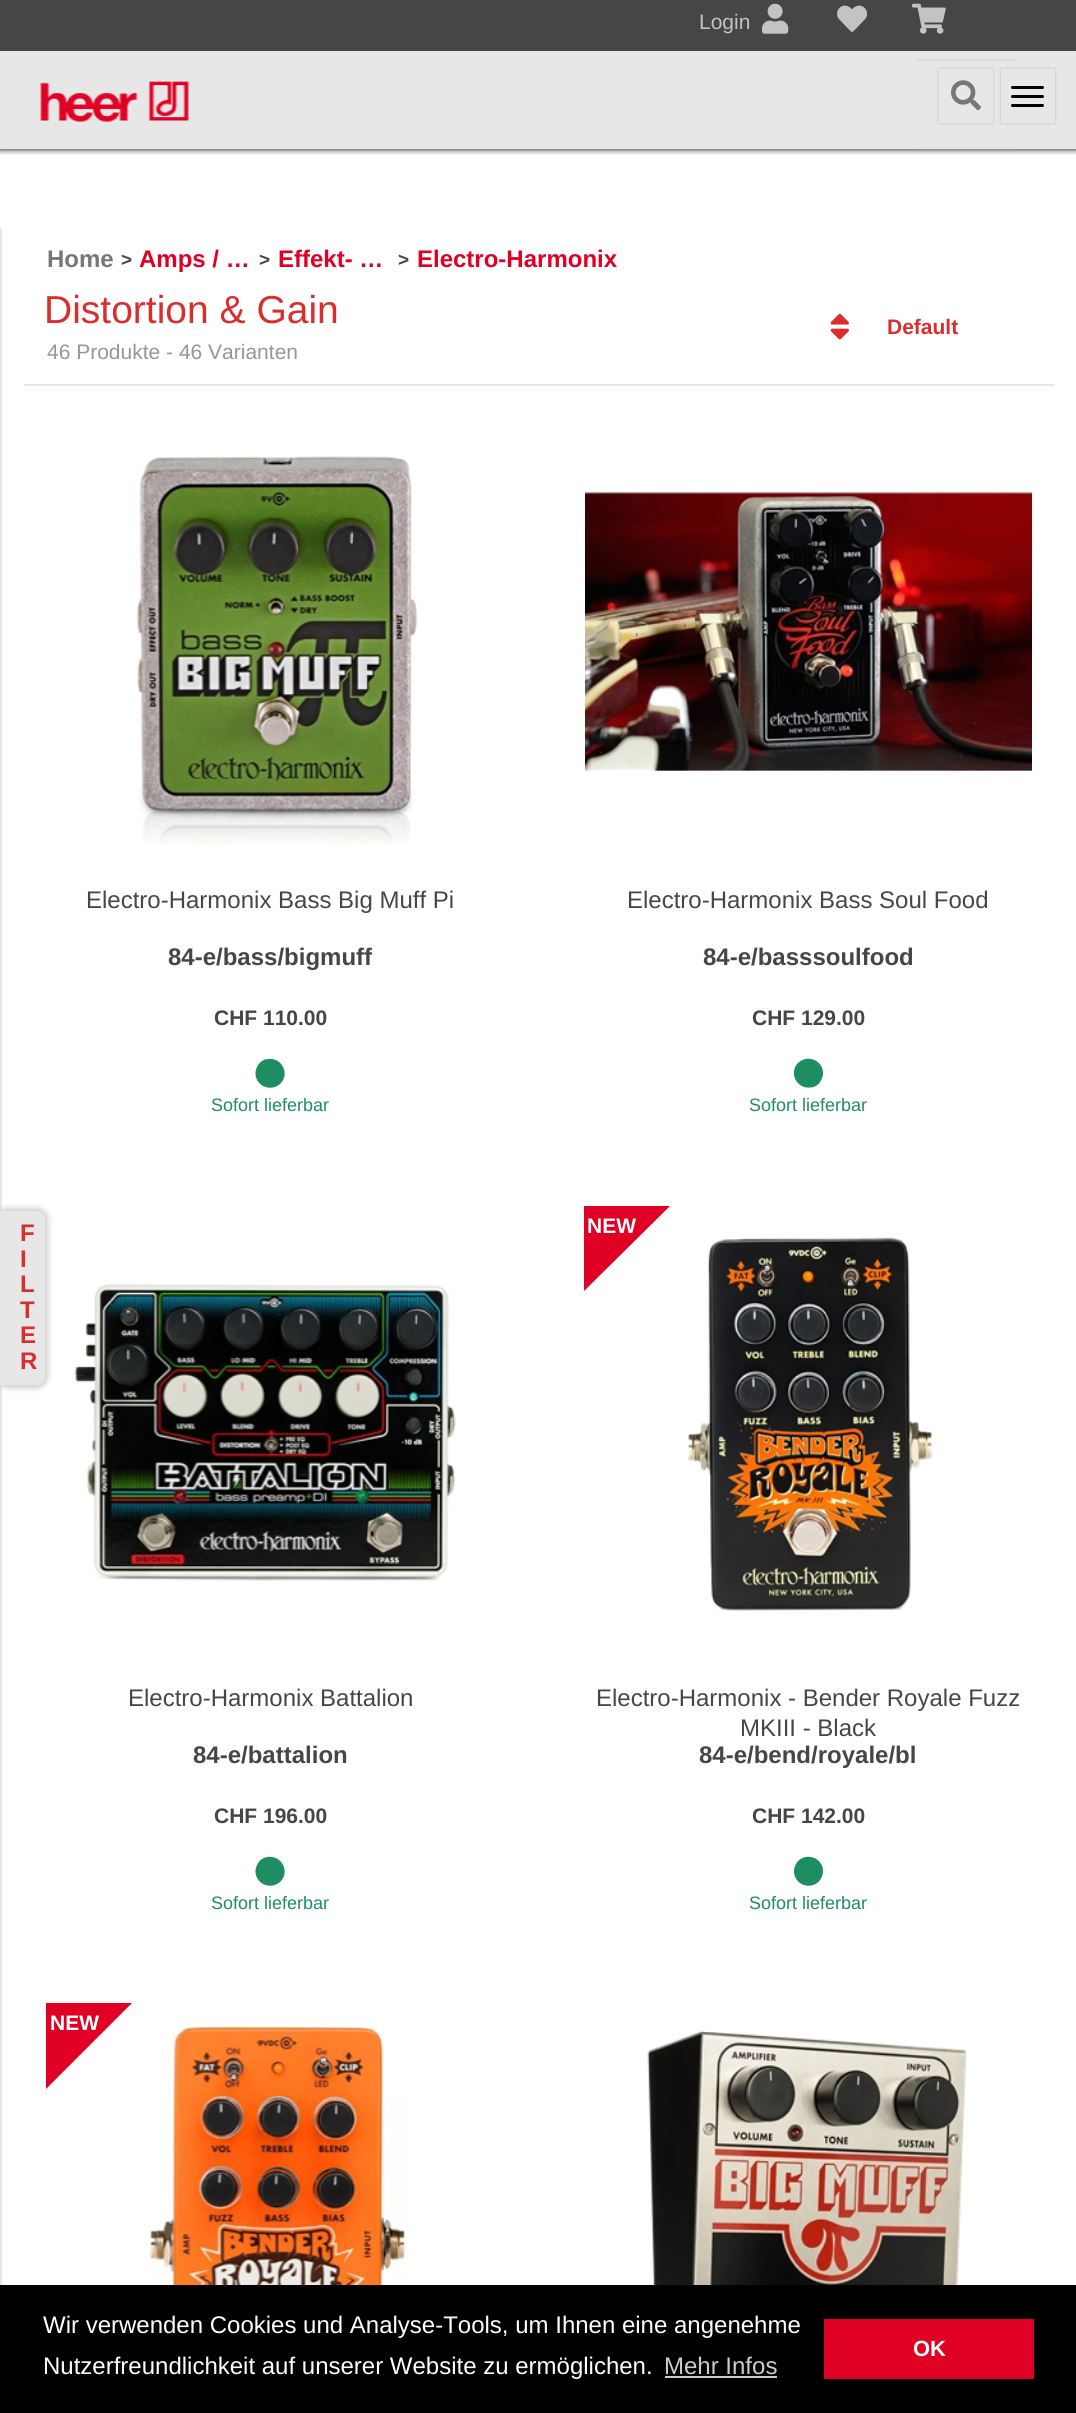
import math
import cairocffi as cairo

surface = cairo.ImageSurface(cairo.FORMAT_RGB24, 1076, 2413)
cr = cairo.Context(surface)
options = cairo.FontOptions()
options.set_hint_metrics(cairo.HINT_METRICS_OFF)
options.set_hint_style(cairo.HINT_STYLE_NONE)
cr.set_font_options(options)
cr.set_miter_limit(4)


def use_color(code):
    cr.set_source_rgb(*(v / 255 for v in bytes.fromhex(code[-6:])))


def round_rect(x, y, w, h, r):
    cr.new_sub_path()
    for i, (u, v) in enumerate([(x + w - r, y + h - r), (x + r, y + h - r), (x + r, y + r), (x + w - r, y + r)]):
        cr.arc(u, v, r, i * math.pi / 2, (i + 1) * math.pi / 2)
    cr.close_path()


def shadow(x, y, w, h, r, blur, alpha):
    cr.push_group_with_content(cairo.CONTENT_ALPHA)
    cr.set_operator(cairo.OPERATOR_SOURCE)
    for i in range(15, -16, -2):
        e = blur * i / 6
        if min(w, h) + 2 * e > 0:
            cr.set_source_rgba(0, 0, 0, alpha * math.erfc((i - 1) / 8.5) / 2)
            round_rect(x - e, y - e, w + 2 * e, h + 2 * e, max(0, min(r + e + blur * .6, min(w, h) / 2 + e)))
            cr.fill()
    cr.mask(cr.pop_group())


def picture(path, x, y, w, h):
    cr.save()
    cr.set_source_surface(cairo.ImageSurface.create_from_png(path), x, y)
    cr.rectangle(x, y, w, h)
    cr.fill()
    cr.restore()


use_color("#ffffff")
cr.paint()
use_color("#323232")
shadow(0, 53, 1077, 97, 0, 2, 0.75)
use_color("#464646")
cr.rectangle(0, 0, 1076, 51)
cr.fill()
cr.select_font_face("Liberation Sans")
cr.set_font_size(21)
use_color("#c3c3c3")
cr.move_to(699, 29)
cr.show_text("Login")
picture("img1.png", 762, 3, 27, 31)
picture("img2.png", 837, 5, 31, 27)
picture("img3.png", 912, 3, 34, 31)
use_color("#e6e7e6")
cr.rectangle(0, 51, 1076, 98)
cr.fill()
use_color("#dbdcdb")
cr.rectangle(917, 59, 99, 1)
cr.fill()
picture("img4.png", 40, 81, 149, 41)
cr.set_source_rgba(1, 1, 1, 0.1)
cr.new_path()
cr.move_to(917, 148)
cr.line_to(917, 150)
cr.line_to(1016, 150)
cr.line_to(1016, 60)
cr.line_to(1016, 148)
cr.close_path()
cr.fill()
use_color("#e9e9e9")
cr.rectangle(917, 61, 99, 1)
cr.fill()
use_color("#dddddd")
cr.rectangle(917, 60, 99, 1)
cr.fill()
cr.save()
cr.set_fill_rule(cairo.FILL_RULE_EVEN_ODD)
cr.new_path()
cr.move_to(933, 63)
cr.line_to(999, 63)
cr.line_to(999, 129)
cr.line_to(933, 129)
cr.close_path()
cr.move_to(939, 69)
cr.line_to(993, 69)
cr.line_to(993, 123)
cr.line_to(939, 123)
cr.close_path()
cr.clip()
use_color("#000000")
shadow(939, 69, 54, 54, 0, 1.5, 0.2)
cr.restore()
picture("img5.png", 951, 80, 30, 31)
cr.save()
cr.set_fill_rule(cairo.FILL_RULE_EVEN_ODD)
cr.new_path()
cr.move_to(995, 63)
cr.line_to(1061, 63)
cr.line_to(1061, 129)
cr.line_to(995, 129)
cr.close_path()
cr.move_to(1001, 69)
cr.line_to(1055, 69)
cr.line_to(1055, 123)
cr.line_to(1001, 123)
cr.close_path()
cr.clip()
use_color("#000000")
shadow(1001, 69, 54, 54, 0, 1.5, 0.2)
cr.restore()
use_color("#000000")
round_rect(1011, 86, 33, 3, 1.5)
cr.fill()
round_rect(1011, 95, 33, 3, 1.5)
cr.fill()
round_rect(1011, 104, 33, 3, 1.5)
cr.fill()
gradient = cairo.LinearGradient(539, 148, 539, 156)
gradient.add_color_stop_rgba(0, 0, 0, 0, 0.2)
gradient.add_color_stop_rgba(1, 0, 0, 0, 0)
cr.set_source(gradient)
cr.rectangle(0, 149, 1076, 6)
cr.fill()
use_color("#e6e7e6")
cr.rectangle(0, 228, 2, 2057)
cr.fill()
use_color("#000000")
shadow(-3, 1208, 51, 180, 11, 3, 0.2)
use_color("#e6e7e6")
cr.new_path()
cr.move_to(1, 1212)
cr.line_to(37, 1212)
cr.curve_to(41, 1212, 44, 1215, 44, 1219)
cr.line_to(44, 1377)
cr.curve_to(44, 1381, 41, 1384, 37, 1384)
cr.line_to(1, 1384)
cr.close_path()
cr.fill_preserve()
cr.stroke()
cr.select_font_face("Liberation Sans", cairo.FONT_SLANT_NORMAL, cairo.FONT_WEIGHT_BOLD)
cr.set_font_size(24)
use_color("#da2e2e")
cr.move_to(20, 1241)
cr.show_text("F")
cr.move_to(20, 1267)
cr.show_text("I")
cr.move_to(20, 1292)
cr.show_text("L")
cr.move_to(20, 1318)
cr.show_text("T")
cr.move_to(20, 1343)
cr.show_text("E")
cr.move_to(20, 1369)
cr.show_text("R")
use_color("#e6e7e6")
cr.rectangle(24, 384, 1031, 2)
cr.fill()
use_color("#777777")
cr.move_to(47, 267)
cr.show_text("Home")
cr.set_font_size(19)
use_color("#464646")
cr.move_to(121, 266)
cr.show_text(">")
cr.set_font_size(24)
use_color("#df0024")
cr.move_to(139, 267)
cr.show_text("Amps / …")
cr.set_font_size(19)
use_color("#464646")
cr.move_to(259, 266)
cr.show_text(">")
cr.set_font_size(24)
use_color("#df0024")
cr.move_to(278, 267)
cr.show_text("Effekt- …")
cr.set_font_size(19)
use_color("#464646")
cr.move_to(398, 266)
cr.show_text(">")
cr.set_font_size(24)
use_color("#df0024")
cr.move_to(417, 267)
cr.show_text("Electro-Harmonix")
cr.select_font_face("Liberation Sans")
cr.set_font_size(39)
use_color("#da2e2e")
cr.move_to(44, 323)
cr.show_text("Distortion & Gain")
picture("img6.png", 830, 313, 19, 27)
cr.select_font_face("Liberation Sans", cairo.FONT_SLANT_NORMAL, cairo.FONT_WEIGHT_BOLD)
cr.set_font_size(21)
cr.move_to(887, 334)
cr.show_text("Default")
cr.select_font_face("Liberation Sans")
use_color("#969696")
cr.move_to(47, 359)
cr.show_text("46 Produkte - 46 Varianten")
picture("img7.png", 136, 456, 282, 389)
cr.set_font_size(24)
use_color("#464646")
cr.move_to(86, 908)
cr.show_text("Electro-Harmonix Bass Big Muff Pi")
cr.select_font_face("Liberation Sans", cairo.FONT_SLANT_NORMAL, cairo.FONT_WEIGHT_BOLD)
cr.move_to(168, 965)
cr.show_text("84-e/bass/bigmuff")
cr.set_font_size(21)
cr.move_to(214, 1025)
cr.show_text("CHF 110.00")
use_color("#1e8d63")
cr.new_path()
cr.move_to(259.5, 1063)
cr.curve_to(262, 1060.5, 265, 1059, 268.5, 1059)
cr.curve_to(282, 1057.5, 290, 1074, 280.5, 1083.5)
cr.curve_to(270.5, 1093, 254.5, 1085.5, 255.5, 1072)
cr.curve_to(256, 1068.5, 257.5, 1065.5, 259.5, 1063)
cr.close_path()
cr.fill()
cr.select_font_face("Liberation Sans")
cr.set_font_size(18)
cr.move_to(211, 1111)
cr.show_text("Sofort lieferbar")
picture("img8.png", 585, 491, 447, 281)
cr.set_font_size(24)
use_color("#464646")
cr.move_to(627, 908)
cr.show_text("Electro-Harmonix Bass Soul Food")
cr.select_font_face("Liberation Sans", cairo.FONT_SLANT_NORMAL, cairo.FONT_WEIGHT_BOLD)
cr.move_to(703, 965)
cr.show_text("84-e/basssoulfood")
cr.set_font_size(21)
cr.move_to(752, 1025)
cr.show_text("CHF 129.00")
use_color("#1e8d63")
cr.new_path()
cr.move_to(798, 1063)
cr.curve_to(808, 1053.5, 824, 1061, 823, 1074.5)
cr.curve_to(822.5, 1078, 821, 1081, 819, 1083.5)
cr.curve_to(816.5, 1086, 813.5, 1087.5, 810, 1087.5)
cr.curve_to(796.5, 1089, 788.5, 1072.5, 798, 1063)
cr.close_path()
cr.fill()
cr.select_font_face("Liberation Sans")
cr.set_font_size(18)
cr.move_to(749, 1111)
cr.show_text("Sofort lieferbar")
picture("img9.png", 74, 1283, 382, 298)
cr.set_font_size(24)
use_color("#464646")
cr.move_to(128, 1706)
cr.show_text("Electro-Harmonix Battalion")
cr.select_font_face("Liberation Sans", cairo.FONT_SLANT_NORMAL, cairo.FONT_WEIGHT_BOLD)
cr.move_to(193, 1763)
cr.show_text("84-e/battalion")
cr.set_font_size(21)
cr.move_to(214, 1823)
cr.show_text("CHF 196.00")
use_color("#1e8d63")
cr.new_path()
cr.move_to(259.5, 1861)
cr.curve_to(262, 1858.5, 265, 1857, 268.5, 1857)
cr.curve_to(282, 1855.5, 290, 1872, 280.5, 1881.5)
cr.curve_to(270.5, 1891, 254.5, 1883.5, 255.5, 1870)
cr.curve_to(256, 1866.5, 257.5, 1863.5, 259.5, 1861)
cr.close_path()
cr.fill()
cr.select_font_face("Liberation Sans")
cr.set_font_size(18)
cr.move_to(211, 1909)
cr.show_text("Sofort lieferbar")
use_color("#df0024")
cr.new_path()
cr.move_to(584, 1291)
cr.line_to(584, 1206)
cr.line_to(670, 1206)
cr.close_path()
cr.fill()
cr.select_font_face("Liberation Sans", cairo.FONT_SLANT_NORMAL, cairo.FONT_WEIGHT_BOLD)
cr.set_font_size(21)
use_color("#ffffff")
cr.move_to(587, 1233)
cr.show_text("NEW")
picture("img10.png", 688, 1237, 245, 374)
cr.select_font_face("Liberation Sans")
cr.set_font_size(24)
use_color("#464646")
cr.move_to(596, 1706)
cr.show_text("Electro-Harmonix - Bender Royale Fuzz")
cr.move_to(740, 1736)
cr.show_text("MKIII - Black")
cr.select_font_face("Liberation Sans", cairo.FONT_SLANT_NORMAL, cairo.FONT_WEIGHT_BOLD)
cr.move_to(699, 1763)
cr.show_text("84-e/bend/royale/bl")
cr.set_font_size(21)
cr.move_to(752, 1823)
cr.show_text("CHF 142.00")
use_color("#1e8d63")
cr.new_path()
cr.move_to(798, 1861)
cr.curve_to(808, 1851.5, 824, 1859, 823, 1872.5)
cr.curve_to(822.5, 1876, 821, 1879, 819, 1881.5)
cr.curve_to(809, 1891, 793, 1883.5, 794, 1870)
cr.curve_to(794.5, 1866.5, 796, 1863.5, 798, 1861)
cr.close_path()
cr.fill()
cr.select_font_face("Liberation Sans")
cr.set_font_size(18)
cr.move_to(749, 1909)
cr.show_text("Sofort lieferbar")
use_color("#df0024")
cr.new_path()
cr.move_to(46, 2089)
cr.line_to(46, 2003)
cr.line_to(132, 2003)
cr.close_path()
cr.fill()
cr.select_font_face("Liberation Sans", cairo.FONT_SLANT_NORMAL, cairo.FONT_WEIGHT_BOLD)
cr.set_font_size(21)
use_color("#ffffff")
cr.move_to(50, 2030)
cr.show_text("NEW")
picture("img11.png", 149, 2026, 261, 259)
picture("img12.png", 647, 2030, 320, 255)
use_color("#000000")
cr.rectangle(0, 2285, 1076, 128)
cr.fill()
cr.select_font_face("Liberation Sans")
cr.set_font_size(24)
use_color("#ffffff")
cr.move_to(43, 2333)
cr.show_text("Wir verwenden Cookies und Analyse-Tools, um Ihnen eine angenehme")
cr.move_to(43, 2374)
cr.show_text("Nutzerfreundlichkeit auf unserer Website zu ermöglichen.")
use_color("#cccccc")
cr.move_to(664, 2374)
cr.show_text("Mehr Infos")
cr.rectangle(665, 2376, 112, 2)
cr.fill()
use_color("#df0024")
cr.rectangle(824, 2319, 210, 60)
cr.fill()
cr.select_font_face("Liberation Sans", cairo.FONT_SLANT_NORMAL, cairo.FONT_WEIGHT_BOLD)
cr.set_font_size(22)
use_color("#ffffff")
cr.move_to(913, 2356)
cr.show_text("OK")
surface.write_to_png("result.png")
